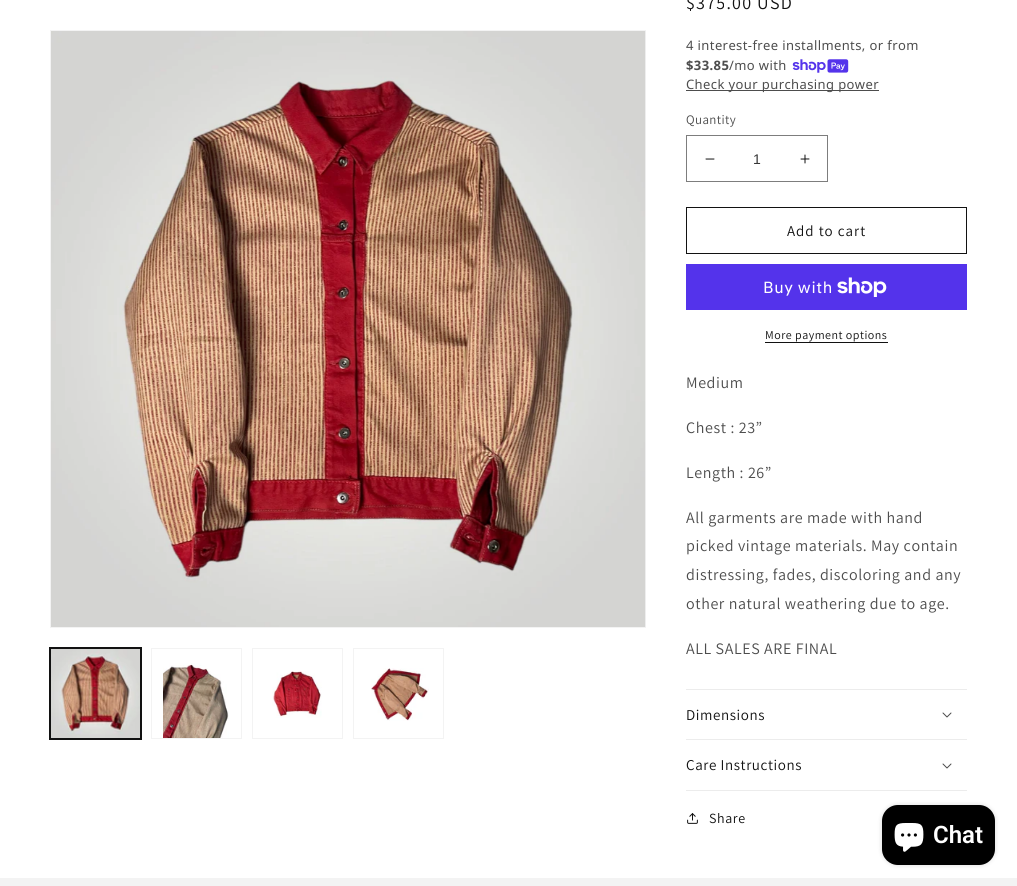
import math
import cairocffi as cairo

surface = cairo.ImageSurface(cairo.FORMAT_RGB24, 1017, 886)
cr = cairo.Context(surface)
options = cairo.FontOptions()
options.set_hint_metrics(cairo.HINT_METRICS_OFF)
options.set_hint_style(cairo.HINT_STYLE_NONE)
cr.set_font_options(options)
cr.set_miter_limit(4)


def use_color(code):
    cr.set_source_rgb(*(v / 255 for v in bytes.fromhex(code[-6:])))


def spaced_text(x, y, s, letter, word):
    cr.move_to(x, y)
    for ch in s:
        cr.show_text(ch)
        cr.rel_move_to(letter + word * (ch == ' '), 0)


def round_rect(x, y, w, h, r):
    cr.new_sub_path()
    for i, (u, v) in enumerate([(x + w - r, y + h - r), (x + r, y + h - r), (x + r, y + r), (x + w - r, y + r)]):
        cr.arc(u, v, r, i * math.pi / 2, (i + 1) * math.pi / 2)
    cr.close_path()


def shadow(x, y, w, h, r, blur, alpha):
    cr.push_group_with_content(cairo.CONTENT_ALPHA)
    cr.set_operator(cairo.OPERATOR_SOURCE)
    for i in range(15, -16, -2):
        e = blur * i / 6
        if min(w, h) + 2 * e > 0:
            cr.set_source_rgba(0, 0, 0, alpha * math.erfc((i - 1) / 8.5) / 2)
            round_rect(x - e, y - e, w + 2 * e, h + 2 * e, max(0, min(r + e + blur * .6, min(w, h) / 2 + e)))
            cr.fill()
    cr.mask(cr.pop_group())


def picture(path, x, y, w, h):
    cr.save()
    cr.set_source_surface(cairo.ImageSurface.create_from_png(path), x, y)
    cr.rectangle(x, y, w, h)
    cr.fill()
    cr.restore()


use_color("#ffffff")
cr.paint()
cr.rectangle(50.5, 30.5, 595, 597)
use_color("#f3f3f3")
cr.set_line_width(1)
cr.stroke()
picture("img1.png", 51, 31, 595, 596)
cr.rectangle(49.5, 647.5, 92, 92)
use_color("#121212")
cr.stroke()
cr.rectangle(50.5, 648.5, 90, 90)
cr.stroke()
picture("img2.png", 51, 649, 89, 89)
cr.rectangle(151.5, 648.5, 90, 90)
use_color("#f3f3f3")
cr.stroke()
picture("img3.png", 163, 663, 66, 75)
cr.rectangle(252.5, 648.5, 90, 90)
cr.stroke()
picture("img4.png", 272, 671, 50, 47)
cr.rectangle(353.5, 648.5, 90, 90)
cr.stroke()
picture("img5.png", 371, 668, 58, 53)
cr.select_font_face("Assistant")
cr.set_font_size(18)
use_color("#121212")
spaced_text(686, 9, "$375.00 USD", 1.25, 0)
cr.select_font_face("Noto Sans")
cr.set_font_size(13)
use_color("#4d4d4d")
spaced_text(686, 50, "4 interest-free installments, or from", 0.4, 0)
cr.select_font_face("Noto Sans", cairo.FONT_SLANT_NORMAL, cairo.FONT_WEIGHT_BOLD)
spaced_text(686, 70, "$33.85", 0.4, 0)
cr.select_font_face("Noto Sans")
spaced_text(729, 70, "/mo with", 0.4, 0)
picture("img6.png", 792, 59, 57, 14)
cr.rectangle(686, 90, 193, 1)
cr.fill()
spaced_text(686, 89, "Check your purchasing power", 0.4, 0)
cr.select_font_face("Assistant")
spaced_text(686, 124, "Quantity", 0.4, 0)
picture("img7.png", 705, 158, 10, 2)
picture("img8.png", 800, 154, 10, 10)
cr.rectangle(686.5, 135.5, 141, 46)
use_color("#7d7d7d")
cr.stroke()
cr.select_font_face("Liberation Sans")
cr.set_font_size(14)
use_color("#363636")
cr.move_to(753, 164)
cr.show_text("1")
cr.rectangle(686.5, 207.5, 280, 46)
use_color("#121212")
cr.stroke()
cr.select_font_face("Assistant")
cr.set_font_size(15)
spaced_text(787, 236, "Add to cart", 1, 0)
use_color("#5433eb")
cr.rectangle(686, 264, 281, 46)
cr.fill()
cr.select_font_face("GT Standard")
cr.set_font_size(16)
use_color("#ffffff")
spaced_text(763, 293, "Buy with", 0.6, 0)
picture("img9.png", 837, 277, 50, 20)
cr.select_font_face("Assistant")
cr.set_font_size(12)
use_color("#121212")
spaced_text(765, 339, "More payment options", 0.5, 0)
cr.rectangle(765, 342, 123, 1)
cr.fill()
cr.set_font_size(16)
use_color("#4d4d4d")
spaced_text(686, 388, "Medium", 0.6, 0)
spaced_text(686, 433, "Chest : 23”", 0.6, 0)
spaced_text(686, 478, "Length : 26”", 0.6, 0)
spaced_text(686, 523, "All garments are made with hand", 0.6, 0)
spaced_text(686, 551, "picked vintage materials. May contain", 0.6, 0)
spaced_text(686, 580, "distressing, fades, discoloring and any", 0.6, 0)
spaced_text(686, 609, "other natural weathering due to age.", 0.6, 0)
spaced_text(686, 654, "ALL SALES ARE FINAL", 0.6, 0)
use_color("#ececec")
cr.rectangle(686, 689, 281, 1)
cr.fill()
cr.rectangle(686, 739, 281, 1)
cr.fill()
cr.set_font_size(15)
use_color("#121212")
spaced_text(686, 720, "Dimensions", 0.6, 0)
picture("img10.png", 942, 712, 10, 6)
use_color("#ececec")
cr.rectangle(686, 790, 281, 1)
cr.fill()
use_color("#121212")
spaced_text(686, 770, "Care Instructions", 0.6, 0)
picture("img10.png", 942, 763, 10, 6)
picture("img11.png", 687, 813, 11, 11)
cr.set_font_size(14)
spaced_text(709, 823, "Share", 0.6, 0)
use_color("#000000")
shadow(882, 805, 113, 60, 16, 2.5, 0.15)
use_color("#000000")
round_rect(882, 805, 113, 60, 16)
cr.fill()
picture("img12.png", 894, 823, 30, 29)
cr.select_font_face("Roboto SemiBold")
cr.set_font_size(24)
use_color("#ffffff")
cr.move_to(933, 843)
cr.show_text("Chat")
use_color("#f3f3f3")
cr.rectangle(0, 878, 1017, 8)
cr.fill()
surface.write_to_png("result.png")
